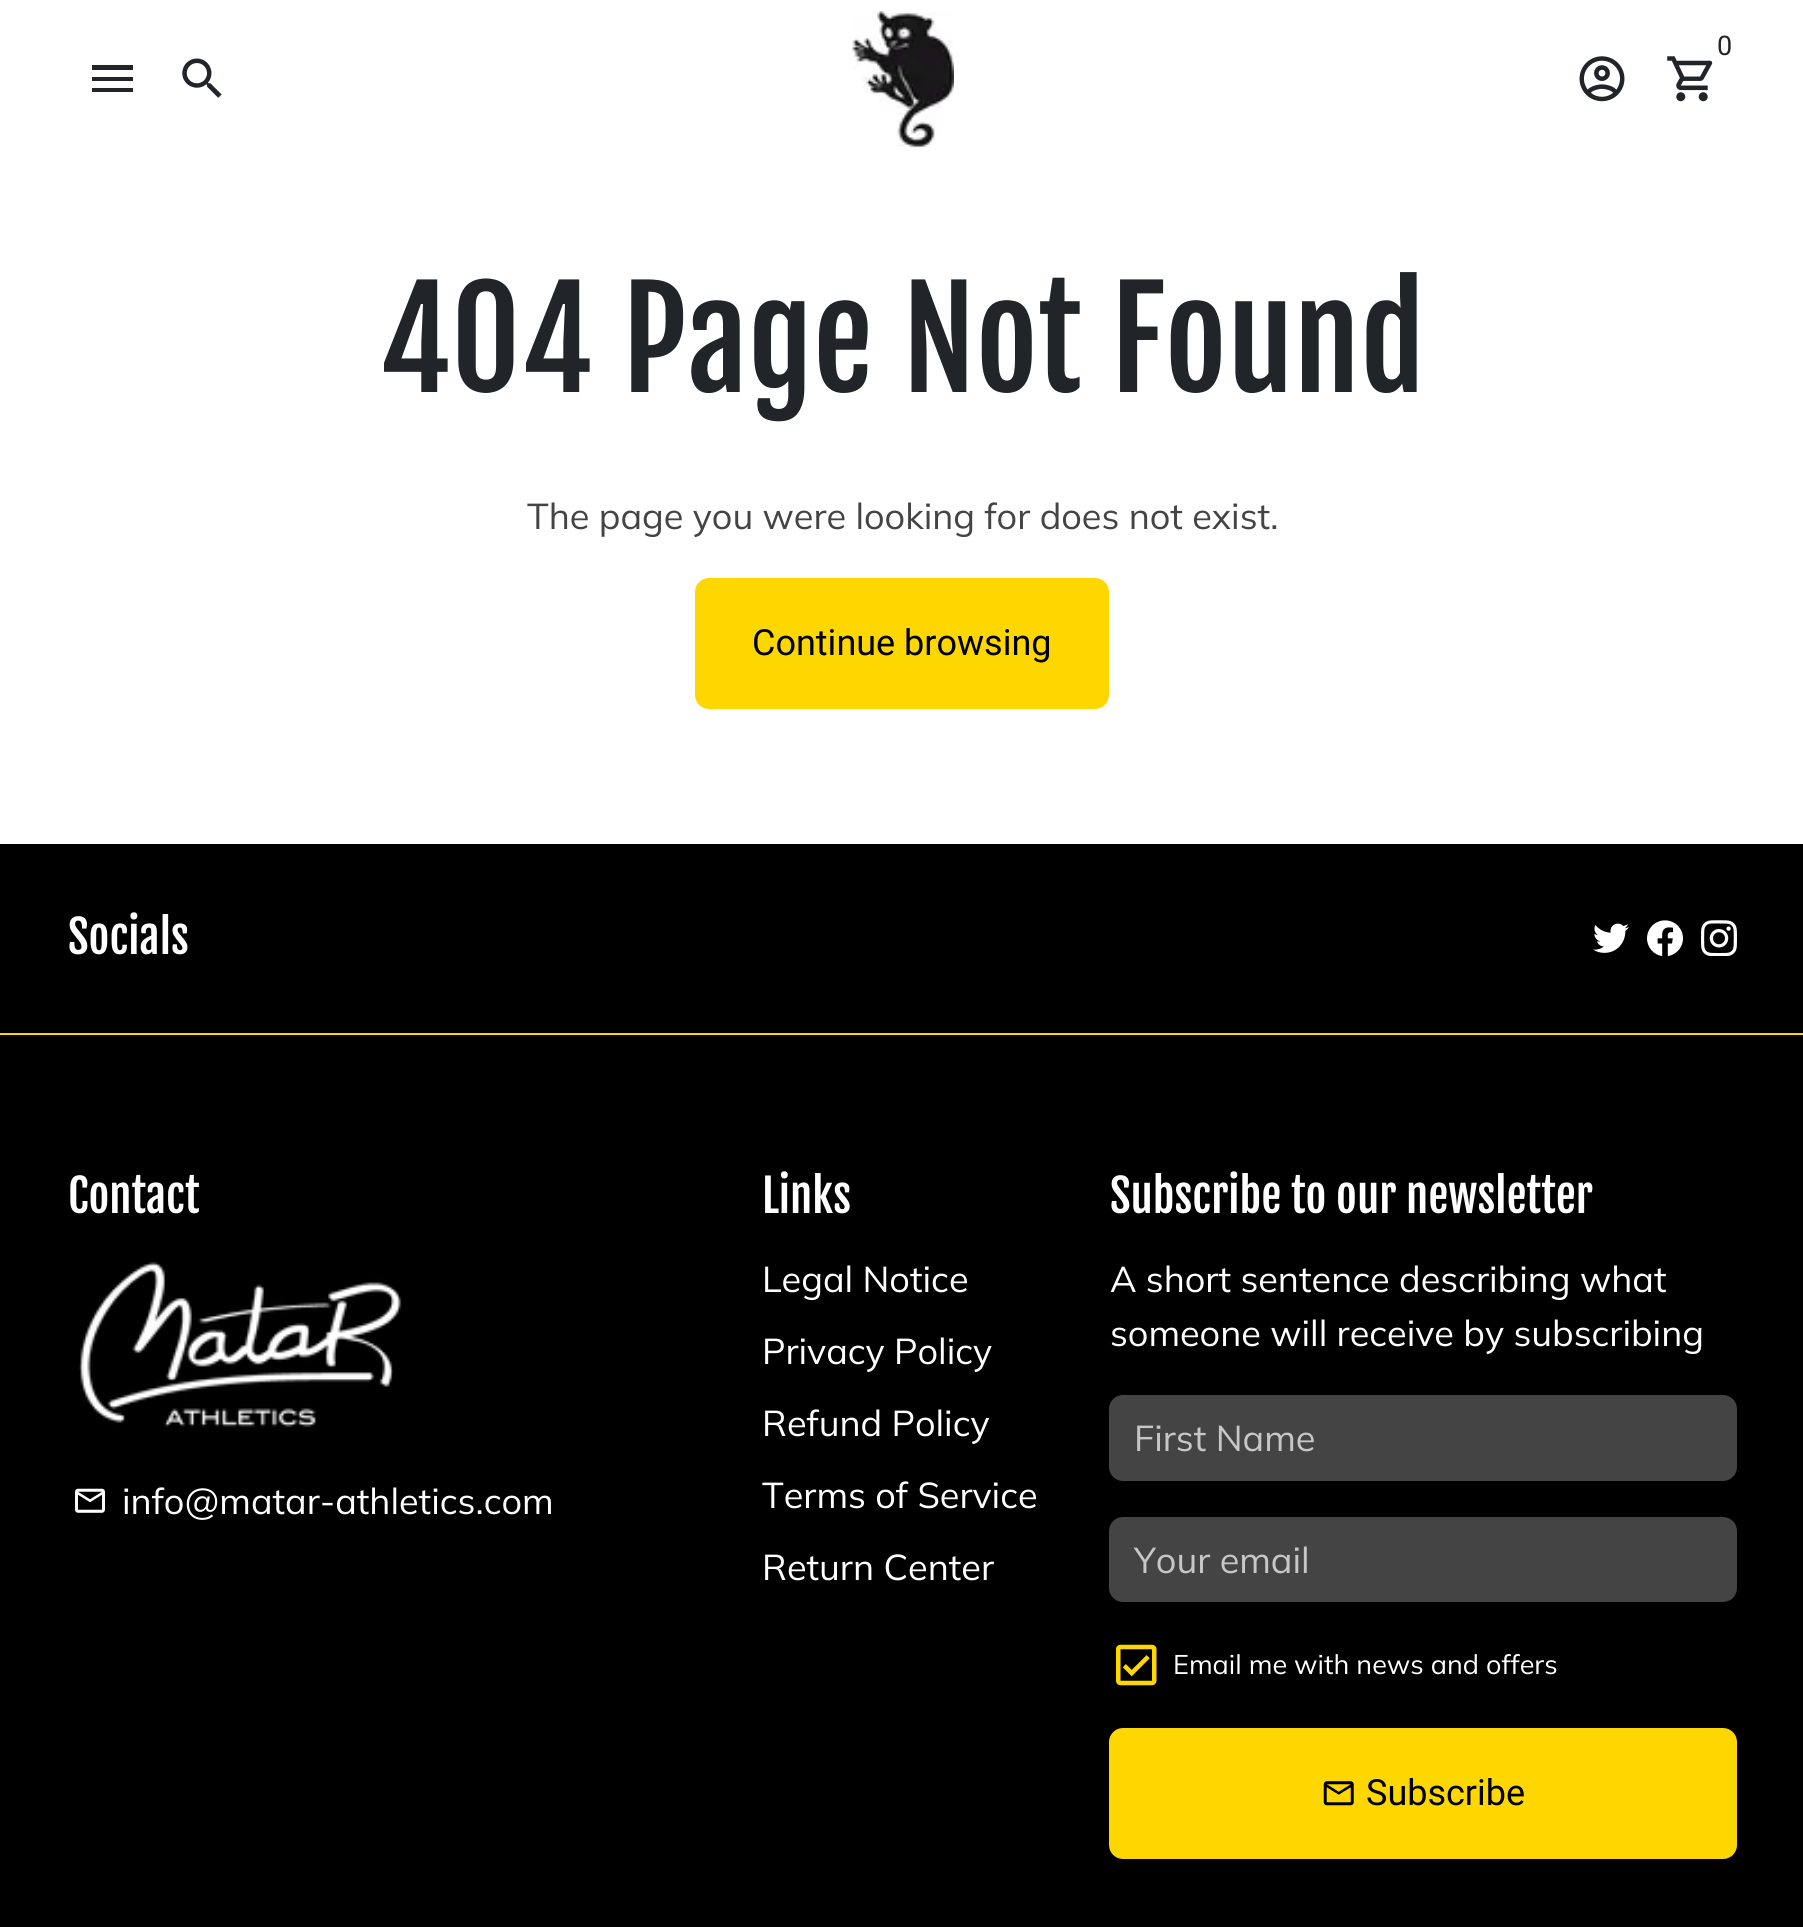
import math
import cairocffi as cairo

surface = cairo.ImageSurface(cairo.FORMAT_RGB24, 1803, 1927)
cr = cairo.Context(surface)
options = cairo.FontOptions()
options.set_hint_metrics(cairo.HINT_METRICS_OFF)
options.set_hint_style(cairo.HINT_STYLE_NONE)
cr.set_font_options(options)
cr.set_miter_limit(4)


def use_color(code):
    cr.set_source_rgb(*(v / 255 for v in bytes.fromhex(code[-6:])))


def round_rect(x, y, w, h, r):
    cr.new_sub_path()
    for i, (u, v) in enumerate([(x + w - r, y + h - r), (x + r, y + h - r), (x + r, y + r), (x + w - r, y + r)]):
        cr.arc(u, v, r, i * math.pi / 2, (i + 1) * math.pi / 2)
    cr.close_path()


def picture(path, x, y, w, h):
    cr.save()
    cr.set_source_surface(cairo.ImageSurface.create_from_png(path), x, y)
    cr.rectangle(x, y, w, h)
    cr.fill()
    cr.restore()


use_color("#ffffff")
cr.paint()
picture("img1.png", 852, 11, 102, 137)
cr.select_font_face("Roboto")
cr.set_font_size(27)
use_color("#212529")
cr.move_to(1717, 55)
cr.show_text("0")
picture("img2.png", 1667, 56, 46, 46)
picture("img3.png", 1579, 56, 46, 46)
cr.new_path()
cr.move_to(92, 92)
cr.line_to(133, 92)
cr.line_to(133, 88)
cr.line_to(92, 88)
cr.close_path()
cr.move_to(92, 81)
cr.line_to(133, 81)
cr.line_to(133, 77)
cr.line_to(92, 77)
cr.close_path()
cr.move_to(92, 65)
cr.line_to(92, 70)
cr.line_to(133, 70)
cr.line_to(133, 65)
cr.close_path()
cr.fill()
picture("img4.png", 182, 58, 40, 40)
cr.select_font_face("Fjalla One")
cr.set_font_size(135)
cr.move_to(379, 392)
cr.show_text("404 Page Not Found")
cr.select_font_face("Muli")
cr.set_font_size(36)
use_color("#444444")
cr.move_to(527, 529)
cr.show_text("The page you were looking for does not exist.")
use_color("#ffd700")
round_rect(696, 579, 412, 129, 13)
cr.fill_preserve()
cr.stroke()
cr.select_font_face("Roboto")
use_color("#000000")
cr.move_to(752, 655)
cr.show_text("Continue browsing")
cr.rectangle(0, 844, 1803, 1083)
cr.fill()
use_color("#ffd700")
cr.rectangle(0, 1033, 1803, 2)
cr.fill()
cr.select_font_face("Fjalla One")
cr.set_font_size(45)
use_color("#ffffff")
cr.move_to(68, 954)
cr.show_text("Socials")
picture("img5.png", 1593, 923, 36, 30)
picture("img6.png", 1647, 920, 36, 36)
picture("img7.png", 1701, 920, 36, 36)
cr.move_to(68, 1213)
cr.show_text("Contact")
picture("img8.png", 78, 1262, 324, 166)
picture("img9.png", 75, 1488, 30, 25)
cr.select_font_face("Muli")
cr.set_font_size(36)
cr.move_to(122, 1514)
cr.show_text("info@matar-athletics.com")
cr.select_font_face("Fjalla One")
cr.set_font_size(45)
cr.move_to(762, 1213)
cr.show_text("Links")
cr.select_font_face("Muli")
cr.set_font_size(36)
cr.move_to(762, 1292)
cr.show_text("Legal Notice")
cr.move_to(762, 1364)
cr.show_text("Privacy Policy")
cr.move_to(762, 1436)
cr.show_text("Refund Policy")
cr.move_to(762, 1508)
cr.show_text("Terms of Service")
cr.move_to(762, 1580)
cr.show_text("Return Center")
cr.select_font_face("Fjalla One")
cr.set_font_size(45)
cr.move_to(1110, 1213)
cr.show_text("Subscribe to our newsletter")
cr.select_font_face("Muli")
cr.set_font_size(36)
cr.move_to(1110, 1292)
cr.show_text("A short sentence describing what")
cr.move_to(1110, 1346)
cr.show_text("someone will receive by subscribing")
use_color("#444444")
round_rect(1110, 1396, 626, 84, 13)
cr.fill_preserve()
cr.stroke()
use_color("#c7c7c7")
cr.move_to(1134, 1451)
cr.show_text("First Name")
use_color("#444444")
round_rect(1110, 1518, 626, 83, 13)
cr.fill_preserve()
cr.stroke()
use_color("#c7c7c7")
cr.move_to(1134, 1573)
cr.show_text("Your email")
picture("img10.png", 1116, 1644, 41, 42)
cr.set_font_size(27)
use_color("#ffffff")
cr.move_to(1173, 1674)
cr.show_text("Email me with news and offers")
use_color("#ffd700")
round_rect(1110, 1729, 626, 129, 13)
cr.fill_preserve()
cr.stroke()
picture("img11.png", 1323, 1781, 31, 25)
cr.select_font_face("Roboto")
cr.set_font_size(36)
use_color("#000000")
cr.move_to(1366, 1805)
cr.show_text("Subscribe")
surface.write_to_png("result.png")
